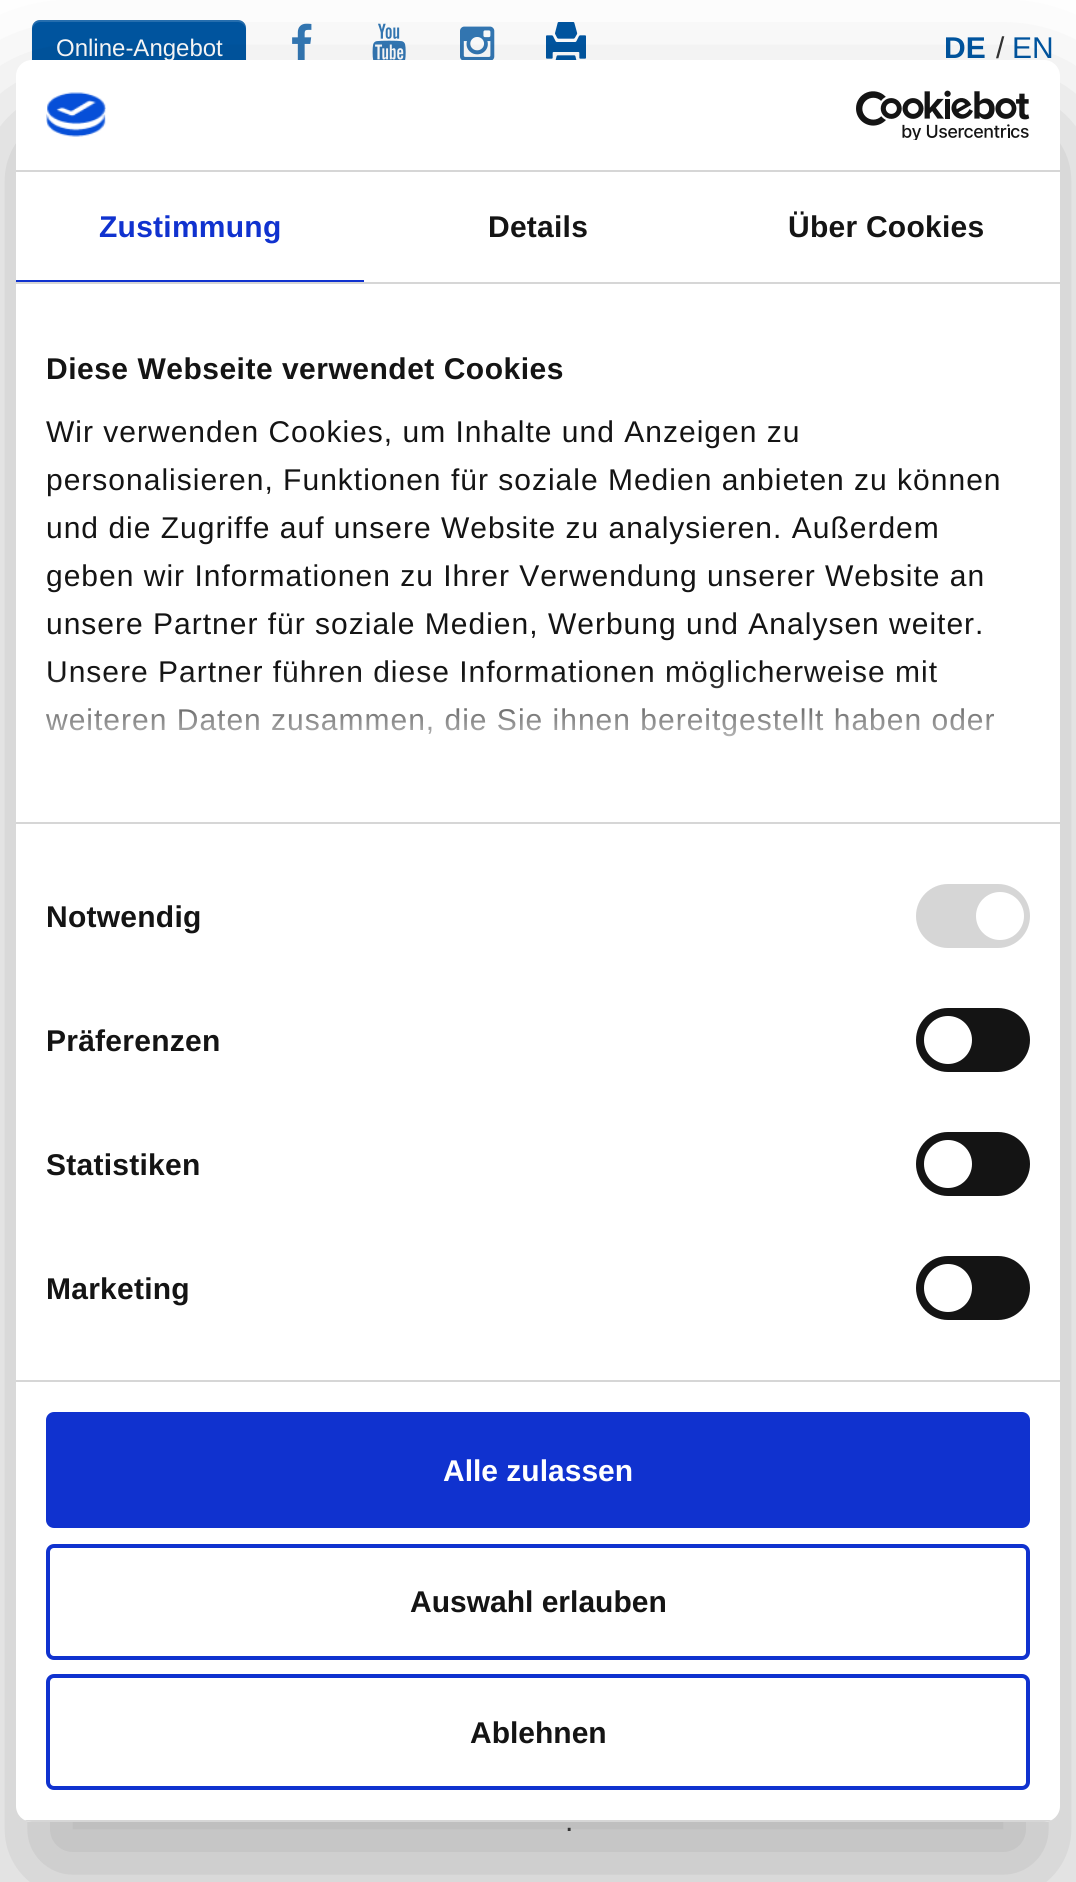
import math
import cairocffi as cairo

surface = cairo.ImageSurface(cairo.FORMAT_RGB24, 1076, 1882)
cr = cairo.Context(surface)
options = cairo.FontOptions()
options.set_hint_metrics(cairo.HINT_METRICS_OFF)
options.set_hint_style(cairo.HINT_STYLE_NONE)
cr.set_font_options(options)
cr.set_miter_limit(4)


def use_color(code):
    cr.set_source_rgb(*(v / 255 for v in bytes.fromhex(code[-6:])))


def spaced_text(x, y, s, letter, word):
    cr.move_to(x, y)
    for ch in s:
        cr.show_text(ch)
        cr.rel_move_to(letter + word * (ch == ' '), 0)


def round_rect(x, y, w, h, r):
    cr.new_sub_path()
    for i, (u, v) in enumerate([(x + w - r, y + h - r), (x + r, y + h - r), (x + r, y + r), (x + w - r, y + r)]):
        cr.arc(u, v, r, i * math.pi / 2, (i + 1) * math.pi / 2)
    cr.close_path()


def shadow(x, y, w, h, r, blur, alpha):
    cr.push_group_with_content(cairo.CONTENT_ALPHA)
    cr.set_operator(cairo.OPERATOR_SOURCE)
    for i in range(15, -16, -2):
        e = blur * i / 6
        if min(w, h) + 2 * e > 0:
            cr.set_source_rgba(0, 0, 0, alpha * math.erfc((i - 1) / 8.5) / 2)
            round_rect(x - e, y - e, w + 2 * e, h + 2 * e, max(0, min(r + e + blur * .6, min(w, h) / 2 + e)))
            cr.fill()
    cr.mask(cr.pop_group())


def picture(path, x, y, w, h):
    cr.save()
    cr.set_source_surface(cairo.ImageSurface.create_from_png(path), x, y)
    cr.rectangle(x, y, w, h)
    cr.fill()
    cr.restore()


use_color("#ffffff")
cr.paint()
use_color("#000000")
shadow(32, 22, 214, 58, 8, 1, 0.07)
use_color("#0056a2")
round_rect(32, 20, 214, 58, 8)
cr.fill()
cr.set_source_rgba(1, 1, 1, 0.15)
cr.new_path()
cr.move_to(40, 22)
cr.line_to(238, 22)
cr.curve_to(242, 22, 246, 26, 246, 30)
cr.line_to(246, 28)
cr.curve_to(246, 24, 242, 20, 238, 20)
cr.line_to(40, 20)
cr.curve_to(36, 20, 32, 24, 32, 28)
cr.line_to(32, 30)
cr.curve_to(32, 26, 36, 22, 40, 22)
cr.close_path()
cr.fill()
cr.select_font_face("Liberation Sans")
cr.set_font_size(24)
use_color("#ffffff")
cr.move_to(56, 56)
cr.show_text("Online-Angebot")
picture("img1.png", 292, 23, 20, 37)
picture("img2.png", 372, 23, 34, 37)
picture("img3.png", 460, 26, 35, 34)
picture("img4.png", 546, 22, 40, 38)
cr.select_font_face("Liberation Sans", cairo.FONT_SLANT_NORMAL, cairo.FONT_WEIGHT_BOLD)
cr.set_font_size(30)
use_color("#0056a2")
cr.move_to(944, 58)
cr.show_text("DE")
cr.select_font_face("Liberation Sans")
use_color("#333333")
cr.move_to(996, 58)
cr.show_text("/")
use_color("#0056a2")
cr.move_to(1012, 58)
cr.show_text("EN")
use_color("#000000")
shadow(16, 124, 1044, 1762, 16, 68, 0.3)
use_color("#ffffff")
round_rect(16, 60, 1044, 1762, 16)
cr.fill()
use_color("#d6d6d6")
cr.rectangle(16, 170, 1044, 2)
cr.fill()
picture("img5.png", 46, 92, 60, 45)
picture("img6.png", 856, 90, 174, 50)
cr.rectangle(16, 282, 1044, 2)
cr.fill()
use_color("#1032cf")
cr.rectangle(16, 280, 348, 2)
cr.fill()
cr.select_font_face("Liberation Sans", cairo.FONT_SLANT_NORMAL, cairo.FONT_WEIGHT_BOLD)
spaced_text(99, 237, "Zustimmung", 0.25, 0)
use_color("#141414")
spaced_text(488, 237, "Details", 0.25, 0)
spaced_text(788, 237, "Über Cookies", 0.25, 0)
use_color("#d6d6d6")
cr.rectangle(16, 822, 1044, 2)
cr.fill()
use_color("#141414")
spaced_text(46, 379, "Diese Webseite verwendet Cookies", 0.5, 0)
cr.select_font_face("Liberation Sans")
spaced_text(46, 442, "Wir verwenden Cookies, um Inhalte und Anzeigen zu", 1, 0)
spaced_text(46, 490, "personalisieren, Funktionen für soziale Medien anbieten zu können", 1, 0)
spaced_text(46, 538, "und die Zugriffe auf unsere Website zu analysieren. Außerdem", 1, 0)
spaced_text(46, 586, "geben wir Informationen zu Ihrer Verwendung unserer Website an", 1, 0)
spaced_text(46, 634, "unsere Partner für soziale Medien, Werbung und Analysen weiter.", 1, 0)
spaced_text(46, 682, "Unsere Partner führen diese Informationen möglicherweise mit", 1, 0)
spaced_text(46, 730, "weiteren Daten zusammen, die Sie ihnen bereitgestellt haben oder", 1, 0)
gradient = cairo.LinearGradient(525, 823, 525, 673)
gradient.add_color_stop_rgba(0, 1, 1, 1, 1)
gradient.add_color_stop_rgba(0.5, 1, 1, 1, 0.8)
gradient.add_color_stop_rgba(1, 1, 1, 1, 0)
cr.set_source(gradient)
cr.rectangle(46, 675, 949, 62)
cr.fill()
use_color("#d6d6d6")
cr.rectangle(16, 1380, 1044, 2)
cr.fill()
cr.select_font_face("Liberation Sans", cairo.FONT_SLANT_NORMAL, cairo.FONT_WEIGHT_BOLD)
use_color("#141414")
spaced_text(46, 927, "Notwendig", 0.25, 0)
use_color("#d6d6d6")
round_rect(916, 884, 114, 64, 32)
cr.fill()
use_color("#ffffff")
cr.arc(1000, 916, 24, 0, 2 * math.pi)
cr.fill()
use_color("#141414")
spaced_text(46, 1051, "Präferenzen", 0.25, 0)
round_rect(916, 1008, 114, 64, 32)
cr.fill()
use_color("#ffffff")
cr.arc(948, 1040, 24, 0, 2 * math.pi)
cr.fill()
use_color("#141414")
spaced_text(46, 1175, "Statistiken", 0.25, 0)
round_rect(916, 1132, 114, 64, 32)
cr.fill()
use_color("#ffffff")
cr.arc(948, 1164, 24, 0, 2 * math.pi)
cr.fill()
use_color("#141414")
spaced_text(46, 1299, "Marketing", 0.25, 0)
round_rect(916, 1256, 114, 64, 32)
cr.fill()
use_color("#ffffff")
cr.arc(948, 1288, 24, 0, 2 * math.pi)
cr.fill()
cr.save()
round_rect(16, 60, 1044, 1762, 16)
cr.clip()
use_color("#d6d6d6")
cr.rectangle(16, 1820, 1044, 2)
cr.fill()
cr.restore()
use_color("#1032cf")
round_rect(48, 1414, 980, 112, 6)
cr.fill_preserve()
cr.set_line_width(4)
cr.stroke()
use_color("#ffffff")
cr.move_to(443, 1481)
cr.show_text("Alle zulassen")
round_rect(48, 1546, 980, 112, 6)
use_color("#1032cf")
cr.stroke()
use_color("#141414")
cr.move_to(410, 1612)
cr.show_text("Auswahl erlauben")
round_rect(48, 1676, 980, 112, 6)
use_color("#1032cf")
cr.stroke()
use_color("#141414")
cr.move_to(470, 1743)
cr.show_text("Ablehnen")
cr.select_font_face("Liberation Sans")
use_color("#333333")
cr.move_to(565, 1831)
cr.show_text(".")
surface.write_to_png("result.png")
